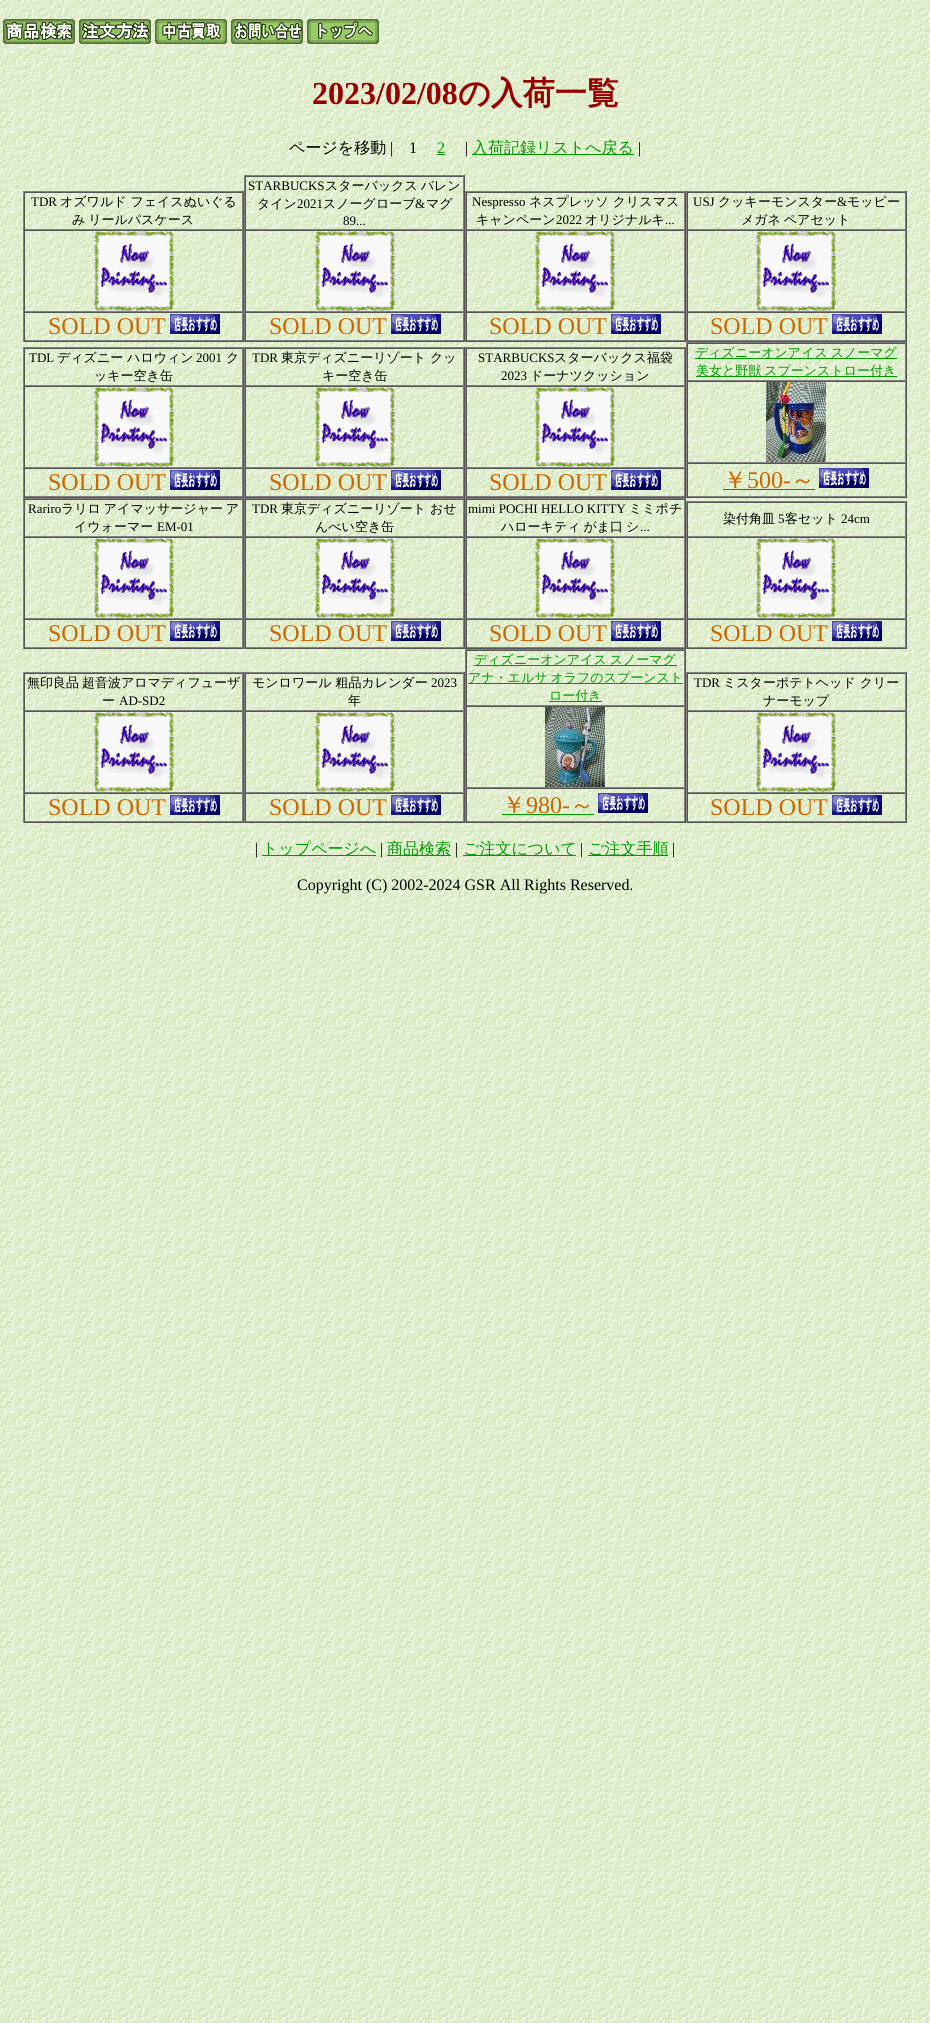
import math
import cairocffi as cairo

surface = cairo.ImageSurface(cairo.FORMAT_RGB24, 930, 2023)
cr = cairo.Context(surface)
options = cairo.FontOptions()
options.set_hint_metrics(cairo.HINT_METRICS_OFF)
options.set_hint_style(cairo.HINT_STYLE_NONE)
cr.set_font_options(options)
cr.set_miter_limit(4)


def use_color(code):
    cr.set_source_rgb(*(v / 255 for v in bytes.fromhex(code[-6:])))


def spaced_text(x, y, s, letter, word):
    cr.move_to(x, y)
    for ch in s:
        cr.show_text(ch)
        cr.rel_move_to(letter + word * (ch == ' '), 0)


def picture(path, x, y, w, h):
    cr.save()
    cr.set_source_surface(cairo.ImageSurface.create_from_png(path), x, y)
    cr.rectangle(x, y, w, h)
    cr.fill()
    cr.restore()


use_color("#ffffff")
cr.paint()
picture("img1.png", 0, 0, 930, 2023)
picture("img2.png", 3, 19, 72, 25)
picture("img3.png", 79, 19, 72, 25)
picture("img4.png", 155, 19, 72, 25)
picture("img5.png", 231, 19, 72, 25)
picture("img6.png", 307, 19, 72, 25)
cr.select_font_face("Liberation Serif", cairo.FONT_SLANT_NORMAL, cairo.FONT_WEIGHT_BOLD)
cr.set_font_size(32)
use_color("#990000")
cr.move_to(312, 104)
cr.show_text("2023/02/08")
cr.select_font_face("WenQuanYi Zen Hei", cairo.FONT_SLANT_NORMAL, cairo.FONT_WEIGHT_BOLD)
cr.move_to(458, 104)
cr.show_text("の入荷一覧")
cr.select_font_face("WenQuanYi Zen Hei Medium")
cr.set_font_size(16)
use_color("#000000")
cr.move_to(289, 153)
cr.show_text("ページを移動")
cr.select_font_face("Liberation Serif")
cr.move_to(390, 153)
cr.show_text("|")
cr.move_to(409, 153)
cr.show_text("1")
use_color("#009900")
cr.move_to(437, 153)
cr.show_text("2")
cr.rectangle(437, 154, 8, 1)
cr.fill()
use_color("#000000")
cr.move_to(465, 153)
cr.show_text("|")
use_color("#009900")
cr.rectangle(472, 154, 162, 1)
cr.fill()
cr.select_font_face("WenQuanYi Zen Hei Medium")
cr.move_to(472, 153)
cr.show_text("入荷記録リストへ戻る")
cr.select_font_face("Liberation Serif")
use_color("#000000")
cr.move_to(638, 153)
cr.show_text("|")
use_color("#808080")
cr.rectangle(23, 191, 221, 1)
cr.fill()
use_color("#555555")
cr.rectangle(243, 191, 1, 151)
cr.fill()
cr.rectangle(23, 341, 221, 1)
cr.fill()
use_color("#808080")
cr.rectangle(23, 191, 1, 151)
cr.fill()
use_color("#555555")
cr.rectangle(24, 192, 219, 1)
cr.fill()
use_color("#808080")
cr.rectangle(242, 192, 1, 38)
cr.fill()
cr.rectangle(24, 229, 219, 1)
cr.fill()
use_color("#555555")
cr.rectangle(24, 192, 1, 38)
cr.fill()
cr.set_font_size(13)
use_color("#000000")
cr.move_to(31, 206)
cr.show_text("TDR")
cr.select_font_face("WenQuanYi Zen Hei Medium")
cr.move_to(60, 206)
cr.show_text("オズワルド フェイスぬいぐる")
spaced_text(72, 224, "み リールパスケース", 0, -1)
use_color("#555555")
cr.rectangle(24, 230, 219, 1)
cr.fill()
use_color("#808080")
cr.rectangle(242, 230, 1, 82)
cr.fill()
cr.rectangle(24, 311, 219, 1)
cr.fill()
use_color("#555555")
cr.rectangle(24, 230, 1, 82)
cr.fill()
picture("img7.png", 94, 231, 80, 80)
cr.rectangle(24, 312, 219, 1)
cr.fill()
use_color("#808080")
cr.rectangle(242, 312, 1, 29)
cr.fill()
cr.rectangle(24, 340, 219, 1)
cr.fill()
use_color("#555555")
cr.rectangle(24, 312, 1, 29)
cr.fill()
cr.select_font_face("Liberation Serif")
cr.set_font_size(24)
use_color("#cc6600")
cr.move_to(48, 334)
cr.show_text("SOLD OUT")
picture("img8.png", 170, 314, 50, 20)
use_color("#808080")
cr.rectangle(244, 175, 221, 1)
cr.fill()
use_color("#555555")
cr.rectangle(464, 175, 1, 167)
cr.fill()
cr.rectangle(244, 341, 221, 1)
cr.fill()
use_color("#808080")
cr.rectangle(244, 175, 1, 167)
cr.fill()
use_color("#555555")
cr.rectangle(245, 176, 219, 1)
cr.fill()
use_color("#808080")
cr.rectangle(463, 176, 1, 54)
cr.fill()
cr.rectangle(245, 229, 219, 1)
cr.fill()
use_color("#555555")
cr.rectangle(245, 176, 1, 54)
cr.fill()
cr.set_font_size(13)
use_color("#000000")
cr.move_to(248, 190)
cr.show_text("STARBUCKS")
cr.select_font_face("WenQuanYi Zen Hei Medium")
spaced_text(325, 190, "スターバックス バレン", 0, -1)
cr.move_to(257, 208)
cr.show_text("タイン")
cr.select_font_face("Liberation Serif")
cr.move_to(297, 208)
cr.show_text("2021")
cr.select_font_face("WenQuanYi Zen Hei Medium")
cr.move_to(323, 208)
cr.show_text("スノーグローブ")
cr.select_font_face("Liberation Serif")
cr.move_to(415, 208)
cr.show_text("&")
cr.select_font_face("WenQuanYi Zen Hei Medium")
cr.move_to(426, 208)
cr.show_text("マグ")
cr.select_font_face("Liberation Serif")
cr.move_to(343, 225)
cr.show_text("89...")
use_color("#555555")
cr.rectangle(245, 230, 219, 1)
cr.fill()
use_color("#808080")
cr.rectangle(463, 230, 1, 82)
cr.fill()
cr.rectangle(245, 311, 219, 1)
cr.fill()
use_color("#555555")
cr.rectangle(245, 230, 1, 82)
cr.fill()
picture("img7.png", 315, 231, 80, 80)
cr.rectangle(245, 312, 219, 1)
cr.fill()
use_color("#808080")
cr.rectangle(463, 312, 1, 29)
cr.fill()
cr.rectangle(245, 340, 219, 1)
cr.fill()
use_color("#555555")
cr.rectangle(245, 312, 1, 29)
cr.fill()
cr.set_font_size(24)
use_color("#cc6600")
cr.move_to(269, 334)
cr.show_text("SOLD OUT")
picture("img8.png", 391, 314, 50, 20)
use_color("#808080")
cr.rectangle(465, 191, 442, 1)
cr.fill()
use_color("#555555")
cr.rectangle(685, 191, 1, 151)
cr.fill()
cr.rectangle(465, 341, 221, 1)
cr.fill()
use_color("#808080")
cr.rectangle(465, 191, 1, 151)
cr.fill()
use_color("#555555")
cr.rectangle(466, 192, 219, 1)
cr.fill()
use_color("#808080")
cr.rectangle(684, 192, 1, 38)
cr.fill()
cr.rectangle(466, 229, 219, 1)
cr.fill()
use_color("#555555")
cr.rectangle(466, 192, 1, 38)
cr.fill()
cr.set_font_size(13)
use_color("#000000")
cr.move_to(472, 206)
cr.show_text("Nespresso")
cr.select_font_face("WenQuanYi Zen Hei Medium")
cr.move_to(529, 206)
cr.show_text("ネスプレッソ クリスマス")
cr.move_to(476, 224)
cr.show_text("キャンペーン")
cr.select_font_face("Liberation Serif")
cr.move_to(556, 224)
cr.show_text("2022")
cr.select_font_face("WenQuanYi Zen Hei Medium")
cr.move_to(585, 224)
cr.show_text("オリジナルキ")
cr.select_font_face("Liberation Serif")
cr.move_to(665, 224)
cr.show_text("...")
use_color("#555555")
cr.rectangle(466, 230, 219, 1)
cr.fill()
use_color("#808080")
cr.rectangle(684, 230, 1, 82)
cr.fill()
cr.rectangle(466, 311, 219, 1)
cr.fill()
use_color("#555555")
cr.rectangle(466, 230, 1, 82)
cr.fill()
picture("img7.png", 535, 231, 80, 80)
cr.rectangle(466, 312, 219, 1)
cr.fill()
use_color("#808080")
cr.rectangle(684, 312, 1, 29)
cr.fill()
cr.rectangle(466, 340, 219, 1)
cr.fill()
use_color("#555555")
cr.rectangle(466, 312, 1, 29)
cr.fill()
cr.set_font_size(24)
use_color("#cc6600")
cr.move_to(489, 334)
cr.show_text("SOLD OUT")
picture("img8.png", 611, 314, 50, 20)
use_color("#555555")
cr.rectangle(906, 191, 1, 151)
cr.fill()
cr.rectangle(686, 341, 221, 1)
cr.fill()
use_color("#808080")
cr.rectangle(686, 191, 1, 151)
cr.fill()
use_color("#555555")
cr.rectangle(687, 192, 219, 1)
cr.fill()
use_color("#808080")
cr.rectangle(905, 192, 1, 38)
cr.fill()
cr.rectangle(687, 229, 219, 1)
cr.fill()
use_color("#555555")
cr.rectangle(687, 192, 1, 38)
cr.fill()
cr.set_font_size(13)
use_color("#000000")
cr.move_to(693, 206)
cr.show_text("USJ")
cr.select_font_face("WenQuanYi Zen Hei Medium")
cr.move_to(718, 206)
cr.show_text("クッキーモンスター")
cr.select_font_face("Liberation Serif")
cr.move_to(837, 206)
cr.show_text("&")
cr.select_font_face("WenQuanYi Zen Hei Medium")
cr.move_to(847, 206)
cr.show_text("モッピー")
spaced_text(741, 224, "メガネ ペアセット", 0, -1)
use_color("#555555")
cr.rectangle(687, 230, 219, 1)
cr.fill()
use_color("#808080")
cr.rectangle(905, 230, 1, 82)
cr.fill()
cr.rectangle(687, 311, 219, 1)
cr.fill()
use_color("#555555")
cr.rectangle(687, 230, 1, 82)
cr.fill()
picture("img7.png", 756, 231, 80, 80)
cr.rectangle(687, 312, 219, 1)
cr.fill()
use_color("#808080")
cr.rectangle(905, 312, 1, 29)
cr.fill()
cr.rectangle(687, 340, 219, 1)
cr.fill()
use_color("#555555")
cr.rectangle(687, 312, 1, 29)
cr.fill()
cr.select_font_face("Liberation Serif")
cr.set_font_size(24)
use_color("#cc6600")
cr.move_to(710, 334)
cr.show_text("SOLD OUT")
picture("img8.png", 832, 314, 50, 20)
use_color("#808080")
cr.rectangle(23, 347, 663, 1)
cr.fill()
use_color("#555555")
cr.rectangle(243, 347, 1, 151)
cr.fill()
cr.rectangle(23, 497, 221, 1)
cr.fill()
use_color("#808080")
cr.rectangle(23, 347, 1, 151)
cr.fill()
use_color("#555555")
cr.rectangle(24, 348, 219, 1)
cr.fill()
use_color("#808080")
cr.rectangle(242, 348, 1, 38)
cr.fill()
cr.rectangle(24, 385, 219, 1)
cr.fill()
use_color("#555555")
cr.rectangle(24, 348, 1, 38)
cr.fill()
cr.set_font_size(13)
use_color("#000000")
cr.move_to(29, 362)
cr.show_text("TDL")
cr.select_font_face("WenQuanYi Zen Hei Medium")
cr.move_to(57, 362)
cr.show_text("ディズニー ハロウィン")
cr.select_font_face("Liberation Serif")
cr.move_to(196, 362)
cr.show_text("2001")
cr.select_font_face("WenQuanYi Zen Hei Medium")
cr.move_to(226, 362)
cr.show_text("ク")
cr.move_to(94, 380)
cr.show_text("ッキー空き缶")
use_color("#555555")
cr.rectangle(24, 386, 219, 1)
cr.fill()
use_color("#808080")
cr.rectangle(242, 386, 1, 82)
cr.fill()
cr.rectangle(24, 467, 219, 1)
cr.fill()
use_color("#555555")
cr.rectangle(24, 386, 1, 82)
cr.fill()
picture("img7.png", 94, 387, 80, 80)
cr.rectangle(24, 468, 219, 1)
cr.fill()
use_color("#808080")
cr.rectangle(242, 468, 1, 29)
cr.fill()
cr.rectangle(24, 496, 219, 1)
cr.fill()
use_color("#555555")
cr.rectangle(24, 468, 1, 29)
cr.fill()
cr.select_font_face("Liberation Serif")
cr.set_font_size(24)
use_color("#cc6600")
cr.move_to(48, 490)
cr.show_text("SOLD OUT")
picture("img8.png", 170, 470, 50, 20)
use_color("#555555")
cr.rectangle(464, 347, 1, 151)
cr.fill()
cr.rectangle(244, 497, 221, 1)
cr.fill()
use_color("#808080")
cr.rectangle(244, 347, 1, 151)
cr.fill()
use_color("#555555")
cr.rectangle(245, 348, 219, 1)
cr.fill()
use_color("#808080")
cr.rectangle(463, 348, 1, 38)
cr.fill()
cr.rectangle(245, 385, 219, 1)
cr.fill()
use_color("#555555")
cr.rectangle(245, 348, 1, 38)
cr.fill()
cr.set_font_size(13)
use_color("#000000")
cr.move_to(252, 362)
cr.show_text("TDR")
cr.select_font_face("WenQuanYi Zen Hei Medium")
cr.move_to(281, 362)
cr.show_text("東京ディズニーリゾート クッ")
cr.move_to(322, 380)
cr.show_text("キー空き缶")
use_color("#555555")
cr.rectangle(245, 386, 219, 1)
cr.fill()
use_color("#808080")
cr.rectangle(463, 386, 1, 82)
cr.fill()
cr.rectangle(245, 467, 219, 1)
cr.fill()
use_color("#555555")
cr.rectangle(245, 386, 1, 82)
cr.fill()
picture("img7.png", 315, 387, 80, 80)
cr.rectangle(245, 468, 219, 1)
cr.fill()
use_color("#808080")
cr.rectangle(463, 468, 1, 29)
cr.fill()
cr.rectangle(245, 496, 219, 1)
cr.fill()
use_color("#555555")
cr.rectangle(245, 468, 1, 29)
cr.fill()
cr.select_font_face("Liberation Serif")
cr.set_font_size(24)
use_color("#cc6600")
cr.move_to(269, 490)
cr.show_text("SOLD OUT")
picture("img8.png", 391, 470, 50, 20)
use_color("#555555")
cr.rectangle(685, 347, 1, 151)
cr.fill()
cr.rectangle(465, 497, 221, 1)
cr.fill()
use_color("#808080")
cr.rectangle(465, 347, 1, 151)
cr.fill()
use_color("#555555")
cr.rectangle(466, 348, 219, 1)
cr.fill()
use_color("#808080")
cr.rectangle(684, 348, 1, 38)
cr.fill()
cr.rectangle(466, 385, 219, 1)
cr.fill()
use_color("#555555")
cr.rectangle(466, 348, 1, 38)
cr.fill()
cr.set_font_size(13)
use_color("#000000")
cr.move_to(478, 362)
cr.show_text("STARBUCKS")
cr.select_font_face("WenQuanYi Zen Hei Medium")
cr.move_to(554, 362)
cr.show_text("スターバックス福袋")
cr.select_font_face("Liberation Serif")
cr.move_to(501, 380)
cr.show_text("2023")
cr.select_font_face("WenQuanYi Zen Hei Medium")
cr.move_to(530, 380)
cr.show_text("ドーナツクッション")
use_color("#555555")
cr.rectangle(466, 386, 219, 1)
cr.fill()
use_color("#808080")
cr.rectangle(684, 386, 1, 82)
cr.fill()
cr.rectangle(466, 467, 219, 1)
cr.fill()
use_color("#555555")
cr.rectangle(466, 386, 1, 82)
cr.fill()
picture("img7.png", 535, 387, 80, 80)
cr.rectangle(466, 468, 219, 1)
cr.fill()
use_color("#808080")
cr.rectangle(684, 468, 1, 29)
cr.fill()
cr.rectangle(466, 496, 219, 1)
cr.fill()
use_color("#555555")
cr.rectangle(466, 468, 1, 29)
cr.fill()
cr.select_font_face("Liberation Serif")
cr.set_font_size(24)
use_color("#cc6600")
cr.move_to(489, 490)
cr.show_text("SOLD OUT")
picture("img8.png", 611, 470, 50, 20)
use_color("#808080")
cr.rectangle(686, 342, 221, 1)
cr.fill()
use_color("#555555")
cr.rectangle(906, 342, 1, 156)
cr.fill()
cr.rectangle(686, 497, 221, 1)
cr.fill()
use_color("#808080")
cr.rectangle(686, 342, 1, 156)
cr.fill()
use_color("#555555")
cr.rectangle(687, 343, 219, 1)
cr.fill()
use_color("#808080")
cr.rectangle(905, 343, 1, 38)
cr.fill()
cr.rectangle(687, 380, 219, 1)
cr.fill()
use_color("#555555")
cr.rectangle(687, 343, 1, 38)
cr.fill()
use_color("#009900")
cr.rectangle(695, 358, 202, 1)
cr.fill()
cr.select_font_face("WenQuanYi Zen Hei Medium")
cr.set_font_size(13)
spaced_text(695, 357, "ディズニーオンアイス スノーマグ", 0, -1)
cr.rectangle(696, 376, 201, 1)
cr.fill()
spaced_text(696, 375, "美女と野獣 スプーンストロー付き", 0, -1)
use_color("#555555")
cr.rectangle(687, 381, 219, 1)
cr.fill()
use_color("#808080")
cr.rectangle(905, 381, 1, 82)
cr.fill()
cr.rectangle(687, 462, 219, 1)
cr.fill()
use_color("#555555")
cr.rectangle(687, 381, 1, 82)
cr.fill()
picture("img9.png", 766, 382, 60, 80)
cr.rectangle(687, 463, 219, 1)
cr.fill()
use_color("#808080")
cr.rectangle(905, 463, 1, 34)
cr.fill()
cr.rectangle(687, 496, 219, 1)
cr.fill()
use_color("#555555")
cr.rectangle(687, 463, 1, 34)
cr.fill()
cr.set_font_size(24)
use_color("#cc6600")
cr.move_to(723, 488)
cr.show_text("￥")
cr.select_font_face("Liberation Serif")
cr.move_to(747, 488)
cr.show_text("500-")
cr.select_font_face("WenQuanYi Zen Hei Medium")
cr.move_to(791, 488)
cr.show_text("～")
use_color("#009900")
cr.rectangle(723, 489, 92, 1)
cr.fill()
picture("img8.png", 819, 468, 50, 20)
use_color("#808080")
cr.rectangle(23, 498, 663, 1)
cr.fill()
use_color("#555555")
cr.rectangle(243, 498, 1, 151)
cr.fill()
cr.rectangle(23, 648, 221, 1)
cr.fill()
use_color("#808080")
cr.rectangle(23, 498, 1, 151)
cr.fill()
use_color("#555555")
cr.rectangle(24, 499, 219, 1)
cr.fill()
use_color("#808080")
cr.rectangle(242, 499, 1, 38)
cr.fill()
cr.rectangle(24, 536, 219, 1)
cr.fill()
use_color("#555555")
cr.rectangle(24, 499, 1, 38)
cr.fill()
cr.select_font_face("Liberation Serif")
cr.set_font_size(13)
use_color("#000000")
cr.move_to(28, 513)
cr.show_text("Rariro")
cr.select_font_face("WenQuanYi Zen Hei Medium")
spaced_text(61, 513, "ラリロ アイマッサージャー ア", 0, -1)
cr.move_to(74, 531)
cr.show_text("イウォーマー")
cr.select_font_face("Liberation Serif")
cr.move_to(157, 531)
cr.show_text("EM-01")
use_color("#555555")
cr.rectangle(24, 537, 219, 1)
cr.fill()
use_color("#808080")
cr.rectangle(242, 537, 1, 82)
cr.fill()
cr.rectangle(24, 618, 219, 1)
cr.fill()
use_color("#555555")
cr.rectangle(24, 537, 1, 82)
cr.fill()
picture("img7.png", 94, 538, 80, 80)
cr.rectangle(24, 619, 219, 1)
cr.fill()
use_color("#808080")
cr.rectangle(242, 619, 1, 29)
cr.fill()
cr.rectangle(24, 647, 219, 1)
cr.fill()
use_color("#555555")
cr.rectangle(24, 619, 1, 29)
cr.fill()
cr.set_font_size(24)
use_color("#cc6600")
cr.move_to(48, 641)
cr.show_text("SOLD OUT")
picture("img8.png", 170, 621, 50, 20)
use_color("#555555")
cr.rectangle(464, 498, 1, 151)
cr.fill()
cr.rectangle(244, 648, 221, 1)
cr.fill()
use_color("#808080")
cr.rectangle(244, 498, 1, 151)
cr.fill()
use_color("#555555")
cr.rectangle(245, 499, 219, 1)
cr.fill()
use_color("#808080")
cr.rectangle(463, 499, 1, 38)
cr.fill()
cr.rectangle(245, 536, 219, 1)
cr.fill()
use_color("#555555")
cr.rectangle(245, 499, 1, 38)
cr.fill()
cr.set_font_size(13)
use_color("#000000")
cr.move_to(252, 513)
cr.show_text("TDR")
cr.select_font_face("WenQuanYi Zen Hei Medium")
cr.move_to(281, 513)
cr.show_text("東京ディズニーリゾート おせ")
cr.move_to(315, 531)
cr.show_text("んべい空き缶")
use_color("#555555")
cr.rectangle(245, 537, 219, 1)
cr.fill()
use_color("#808080")
cr.rectangle(463, 537, 1, 82)
cr.fill()
cr.rectangle(245, 618, 219, 1)
cr.fill()
use_color("#555555")
cr.rectangle(245, 537, 1, 82)
cr.fill()
picture("img7.png", 315, 538, 80, 80)
cr.rectangle(245, 619, 219, 1)
cr.fill()
use_color("#808080")
cr.rectangle(463, 619, 1, 29)
cr.fill()
cr.rectangle(245, 647, 219, 1)
cr.fill()
use_color("#555555")
cr.rectangle(245, 619, 1, 29)
cr.fill()
cr.select_font_face("Liberation Serif")
cr.set_font_size(24)
use_color("#cc6600")
cr.move_to(269, 641)
cr.show_text("SOLD OUT")
picture("img8.png", 391, 621, 50, 20)
use_color("#555555")
cr.rectangle(685, 498, 1, 151)
cr.fill()
cr.rectangle(465, 648, 221, 1)
cr.fill()
use_color("#808080")
cr.rectangle(465, 498, 1, 151)
cr.fill()
use_color("#555555")
cr.rectangle(466, 499, 219, 1)
cr.fill()
use_color("#808080")
cr.rectangle(684, 499, 1, 38)
cr.fill()
cr.rectangle(466, 536, 219, 1)
cr.fill()
use_color("#555555")
cr.rectangle(466, 499, 1, 38)
cr.fill()
cr.set_font_size(13)
use_color("#000000")
cr.move_to(468, 513)
cr.show_text("mimi POCHI HELLO KITTY")
cr.select_font_face("WenQuanYi Zen Hei Medium")
cr.move_to(629, 513)
cr.show_text("ミミポチ")
spaced_text(501, 531, "ハローキティ がま口 シ", 0, -1)
cr.select_font_face("Liberation Serif")
cr.move_to(640, 531)
cr.show_text("...")
use_color("#555555")
cr.rectangle(466, 537, 219, 1)
cr.fill()
use_color("#808080")
cr.rectangle(684, 537, 1, 82)
cr.fill()
cr.rectangle(466, 618, 219, 1)
cr.fill()
use_color("#555555")
cr.rectangle(466, 537, 1, 82)
cr.fill()
picture("img7.png", 535, 538, 80, 80)
cr.rectangle(466, 619, 219, 1)
cr.fill()
use_color("#808080")
cr.rectangle(684, 619, 1, 29)
cr.fill()
cr.rectangle(466, 647, 219, 1)
cr.fill()
use_color("#555555")
cr.rectangle(466, 619, 1, 29)
cr.fill()
cr.set_font_size(24)
use_color("#cc6600")
cr.move_to(489, 641)
cr.show_text("SOLD OUT")
picture("img8.png", 611, 621, 50, 20)
use_color("#808080")
cr.rectangle(686, 501, 221, 1)
cr.fill()
use_color("#555555")
cr.rectangle(906, 501, 1, 148)
cr.fill()
cr.rectangle(686, 648, 221, 1)
cr.fill()
use_color("#808080")
cr.rectangle(686, 501, 1, 148)
cr.fill()
use_color("#555555")
cr.rectangle(687, 502, 219, 1)
cr.fill()
use_color("#808080")
cr.rectangle(905, 502, 1, 35)
cr.fill()
cr.rectangle(687, 536, 219, 1)
cr.fill()
use_color("#555555")
cr.rectangle(687, 502, 1, 35)
cr.fill()
cr.select_font_face("WenQuanYi Zen Hei Medium")
cr.set_font_size(13)
use_color("#000000")
cr.move_to(723, 523)
cr.show_text("染付角皿")
cr.select_font_face("Liberation Serif")
cr.move_to(778, 523)
cr.show_text("5")
cr.select_font_face("WenQuanYi Zen Hei Medium")
cr.move_to(785, 523)
cr.show_text("客セット")
cr.select_font_face("Liberation Serif")
cr.move_to(841, 523)
cr.show_text("24cm")
use_color("#555555")
cr.rectangle(687, 537, 219, 1)
cr.fill()
use_color("#808080")
cr.rectangle(905, 537, 1, 82)
cr.fill()
cr.rectangle(687, 618, 219, 1)
cr.fill()
use_color("#555555")
cr.rectangle(687, 537, 1, 82)
cr.fill()
picture("img7.png", 756, 538, 80, 80)
cr.rectangle(687, 619, 219, 1)
cr.fill()
use_color("#808080")
cr.rectangle(905, 619, 1, 29)
cr.fill()
cr.rectangle(687, 647, 219, 1)
cr.fill()
use_color("#555555")
cr.rectangle(687, 619, 1, 29)
cr.fill()
cr.set_font_size(24)
use_color("#cc6600")
cr.move_to(710, 641)
cr.show_text("SOLD OUT")
picture("img8.png", 832, 621, 50, 20)
use_color("#808080")
cr.rectangle(23, 672, 442, 1)
cr.fill()
use_color("#555555")
cr.rectangle(243, 672, 1, 151)
cr.fill()
cr.rectangle(23, 822, 221, 1)
cr.fill()
use_color("#808080")
cr.rectangle(23, 672, 1, 151)
cr.fill()
use_color("#555555")
cr.rectangle(24, 673, 219, 1)
cr.fill()
use_color("#808080")
cr.rectangle(242, 673, 1, 38)
cr.fill()
cr.rectangle(24, 710, 219, 1)
cr.fill()
use_color("#555555")
cr.rectangle(24, 673, 1, 38)
cr.fill()
cr.select_font_face("WenQuanYi Zen Hei Medium")
cr.set_font_size(13)
use_color("#000000")
spaced_text(27, 687, "無印良品 超音波アロマディフューザ", 0, -1)
cr.move_to(102, 705)
cr.show_text("ー")
cr.select_font_face("Liberation Serif")
cr.move_to(119, 705)
cr.show_text("AD-SD2")
use_color("#555555")
cr.rectangle(24, 711, 219, 1)
cr.fill()
use_color("#808080")
cr.rectangle(242, 711, 1, 82)
cr.fill()
cr.rectangle(24, 792, 219, 1)
cr.fill()
use_color("#555555")
cr.rectangle(24, 711, 1, 82)
cr.fill()
picture("img7.png", 94, 712, 80, 80)
cr.rectangle(24, 793, 219, 1)
cr.fill()
use_color("#808080")
cr.rectangle(242, 793, 1, 29)
cr.fill()
cr.rectangle(24, 821, 219, 1)
cr.fill()
use_color("#555555")
cr.rectangle(24, 793, 1, 29)
cr.fill()
cr.set_font_size(24)
use_color("#cc6600")
cr.move_to(48, 815)
cr.show_text("SOLD OUT")
picture("img8.png", 170, 795, 50, 20)
use_color("#555555")
cr.rectangle(464, 672, 1, 151)
cr.fill()
cr.rectangle(244, 822, 221, 1)
cr.fill()
use_color("#808080")
cr.rectangle(244, 672, 1, 151)
cr.fill()
use_color("#555555")
cr.rectangle(245, 673, 219, 1)
cr.fill()
use_color("#808080")
cr.rectangle(463, 673, 1, 38)
cr.fill()
cr.rectangle(245, 710, 219, 1)
cr.fill()
use_color("#555555")
cr.rectangle(245, 673, 1, 38)
cr.fill()
cr.select_font_face("WenQuanYi Zen Hei Medium")
cr.set_font_size(13)
use_color("#000000")
cr.move_to(252, 687)
cr.show_text("モンロワール 粗品カレンダー")
cr.select_font_face("Liberation Serif")
cr.move_to(431, 687)
cr.show_text("2023")
cr.select_font_face("WenQuanYi Zen Hei Medium")
cr.move_to(348, 705)
cr.show_text("年")
use_color("#555555")
cr.rectangle(245, 711, 219, 1)
cr.fill()
use_color("#808080")
cr.rectangle(463, 711, 1, 82)
cr.fill()
cr.rectangle(245, 792, 219, 1)
cr.fill()
use_color("#555555")
cr.rectangle(245, 711, 1, 82)
cr.fill()
picture("img7.png", 315, 712, 80, 80)
cr.rectangle(245, 793, 219, 1)
cr.fill()
use_color("#808080")
cr.rectangle(463, 793, 1, 29)
cr.fill()
cr.rectangle(245, 821, 219, 1)
cr.fill()
use_color("#555555")
cr.rectangle(245, 793, 1, 29)
cr.fill()
cr.select_font_face("Liberation Serif")
cr.set_font_size(24)
use_color("#cc6600")
cr.move_to(269, 815)
cr.show_text("SOLD OUT")
picture("img8.png", 391, 795, 50, 20)
use_color("#808080")
cr.rectangle(465, 649, 221, 1)
cr.fill()
use_color("#555555")
cr.rectangle(685, 649, 1, 174)
cr.fill()
cr.rectangle(465, 822, 221, 1)
cr.fill()
use_color("#808080")
cr.rectangle(465, 649, 1, 174)
cr.fill()
use_color("#555555")
cr.rectangle(466, 650, 219, 1)
cr.fill()
use_color("#808080")
cr.rectangle(684, 650, 1, 56)
cr.fill()
cr.rectangle(466, 705, 219, 1)
cr.fill()
use_color("#555555")
cr.rectangle(466, 650, 1, 56)
cr.fill()
use_color("#009900")
cr.rectangle(474, 665, 203, 1)
cr.fill()
cr.select_font_face("WenQuanYi Zen Hei Medium")
cr.set_font_size(13)
spaced_text(474, 664, "ディズニーオンアイス スノーマグ", 0, -1)
cr.rectangle(468, 683, 215, 1)
cr.fill()
spaced_text(468, 682, "アナ・エルサ オラフのスプーンスト", 0, -1)
cr.rectangle(549, 701, 53, 1)
cr.fill()
cr.move_to(549, 700)
cr.show_text("ロー付き")
use_color("#555555")
cr.rectangle(466, 706, 219, 1)
cr.fill()
use_color("#808080")
cr.rectangle(684, 706, 1, 82)
cr.fill()
cr.rectangle(466, 787, 219, 1)
cr.fill()
use_color("#555555")
cr.rectangle(466, 706, 1, 82)
cr.fill()
picture("img10.png", 545, 707, 60, 80)
cr.rectangle(466, 788, 219, 1)
cr.fill()
use_color("#808080")
cr.rectangle(684, 788, 1, 34)
cr.fill()
cr.rectangle(466, 821, 219, 1)
cr.fill()
use_color("#555555")
cr.rectangle(466, 788, 1, 34)
cr.fill()
cr.set_font_size(24)
use_color("#cc6600")
cr.move_to(502, 813)
cr.show_text("￥")
cr.select_font_face("Liberation Serif")
cr.move_to(526, 813)
cr.show_text("980-")
cr.select_font_face("WenQuanYi Zen Hei Medium")
cr.move_to(570, 813)
cr.show_text("～")
use_color("#009900")
cr.rectangle(502, 814, 92, 1)
cr.fill()
picture("img8.png", 598, 793, 50, 20)
use_color("#808080")
cr.rectangle(686, 672, 221, 1)
cr.fill()
use_color("#555555")
cr.rectangle(906, 672, 1, 151)
cr.fill()
cr.rectangle(686, 822, 221, 1)
cr.fill()
use_color("#808080")
cr.rectangle(686, 672, 1, 151)
cr.fill()
use_color("#555555")
cr.rectangle(687, 673, 219, 1)
cr.fill()
use_color("#808080")
cr.rectangle(905, 673, 1, 38)
cr.fill()
cr.rectangle(687, 710, 219, 1)
cr.fill()
use_color("#555555")
cr.rectangle(687, 673, 1, 38)
cr.fill()
cr.select_font_face("Liberation Serif")
cr.set_font_size(13)
use_color("#000000")
cr.move_to(694, 687)
cr.show_text("TDR")
cr.select_font_face("WenQuanYi Zen Hei Medium")
cr.move_to(723, 687)
cr.show_text("ミスターポテトヘッド クリー")
cr.move_to(763, 705)
cr.show_text("ナーモップ")
use_color("#555555")
cr.rectangle(687, 711, 219, 1)
cr.fill()
use_color("#808080")
cr.rectangle(905, 711, 1, 82)
cr.fill()
cr.rectangle(687, 792, 219, 1)
cr.fill()
use_color("#555555")
cr.rectangle(687, 711, 1, 82)
cr.fill()
picture("img7.png", 756, 712, 80, 80)
cr.rectangle(687, 793, 219, 1)
cr.fill()
use_color("#808080")
cr.rectangle(905, 793, 1, 29)
cr.fill()
cr.rectangle(687, 821, 219, 1)
cr.fill()
use_color("#555555")
cr.rectangle(687, 793, 1, 29)
cr.fill()
cr.select_font_face("Liberation Serif")
cr.set_font_size(24)
use_color("#cc6600")
cr.move_to(710, 815)
cr.show_text("SOLD OUT")
picture("img8.png", 832, 795, 50, 20)
cr.set_font_size(16)
use_color("#000000")
cr.move_to(255, 854)
cr.show_text("|")
use_color("#009900")
cr.rectangle(262, 855, 114, 1)
cr.fill()
cr.select_font_face("WenQuanYi Zen Hei Medium")
cr.move_to(262, 854)
cr.show_text("トップページへ")
cr.select_font_face("Liberation Serif")
use_color("#000000")
cr.move_to(380, 854)
cr.show_text("|")
use_color("#009900")
cr.rectangle(387, 855, 64, 1)
cr.fill()
cr.select_font_face("WenQuanYi Zen Hei Medium")
cr.move_to(387, 854)
cr.show_text("商品検索")
cr.select_font_face("Liberation Serif")
use_color("#000000")
cr.move_to(455, 854)
cr.show_text("|")
use_color("#009900")
cr.rectangle(463, 855, 113, 1)
cr.fill()
cr.select_font_face("WenQuanYi Zen Hei Medium")
cr.move_to(463, 854)
cr.show_text("ご注文について")
cr.select_font_face("Liberation Serif")
use_color("#000000")
cr.move_to(580, 854)
cr.show_text("|")
use_color("#009900")
cr.rectangle(588, 855, 80, 1)
cr.fill()
cr.select_font_face("WenQuanYi Zen Hei Medium")
cr.move_to(588, 854)
cr.show_text("ご注文手順")
cr.select_font_face("Liberation Serif")
use_color("#000000")
cr.move_to(672, 854)
cr.show_text("|")
cr.move_to(297, 890)
cr.show_text("Copyright (C) 2002-2024 GSR All Rights Reserved.")
surface.write_to_png("result.png")
